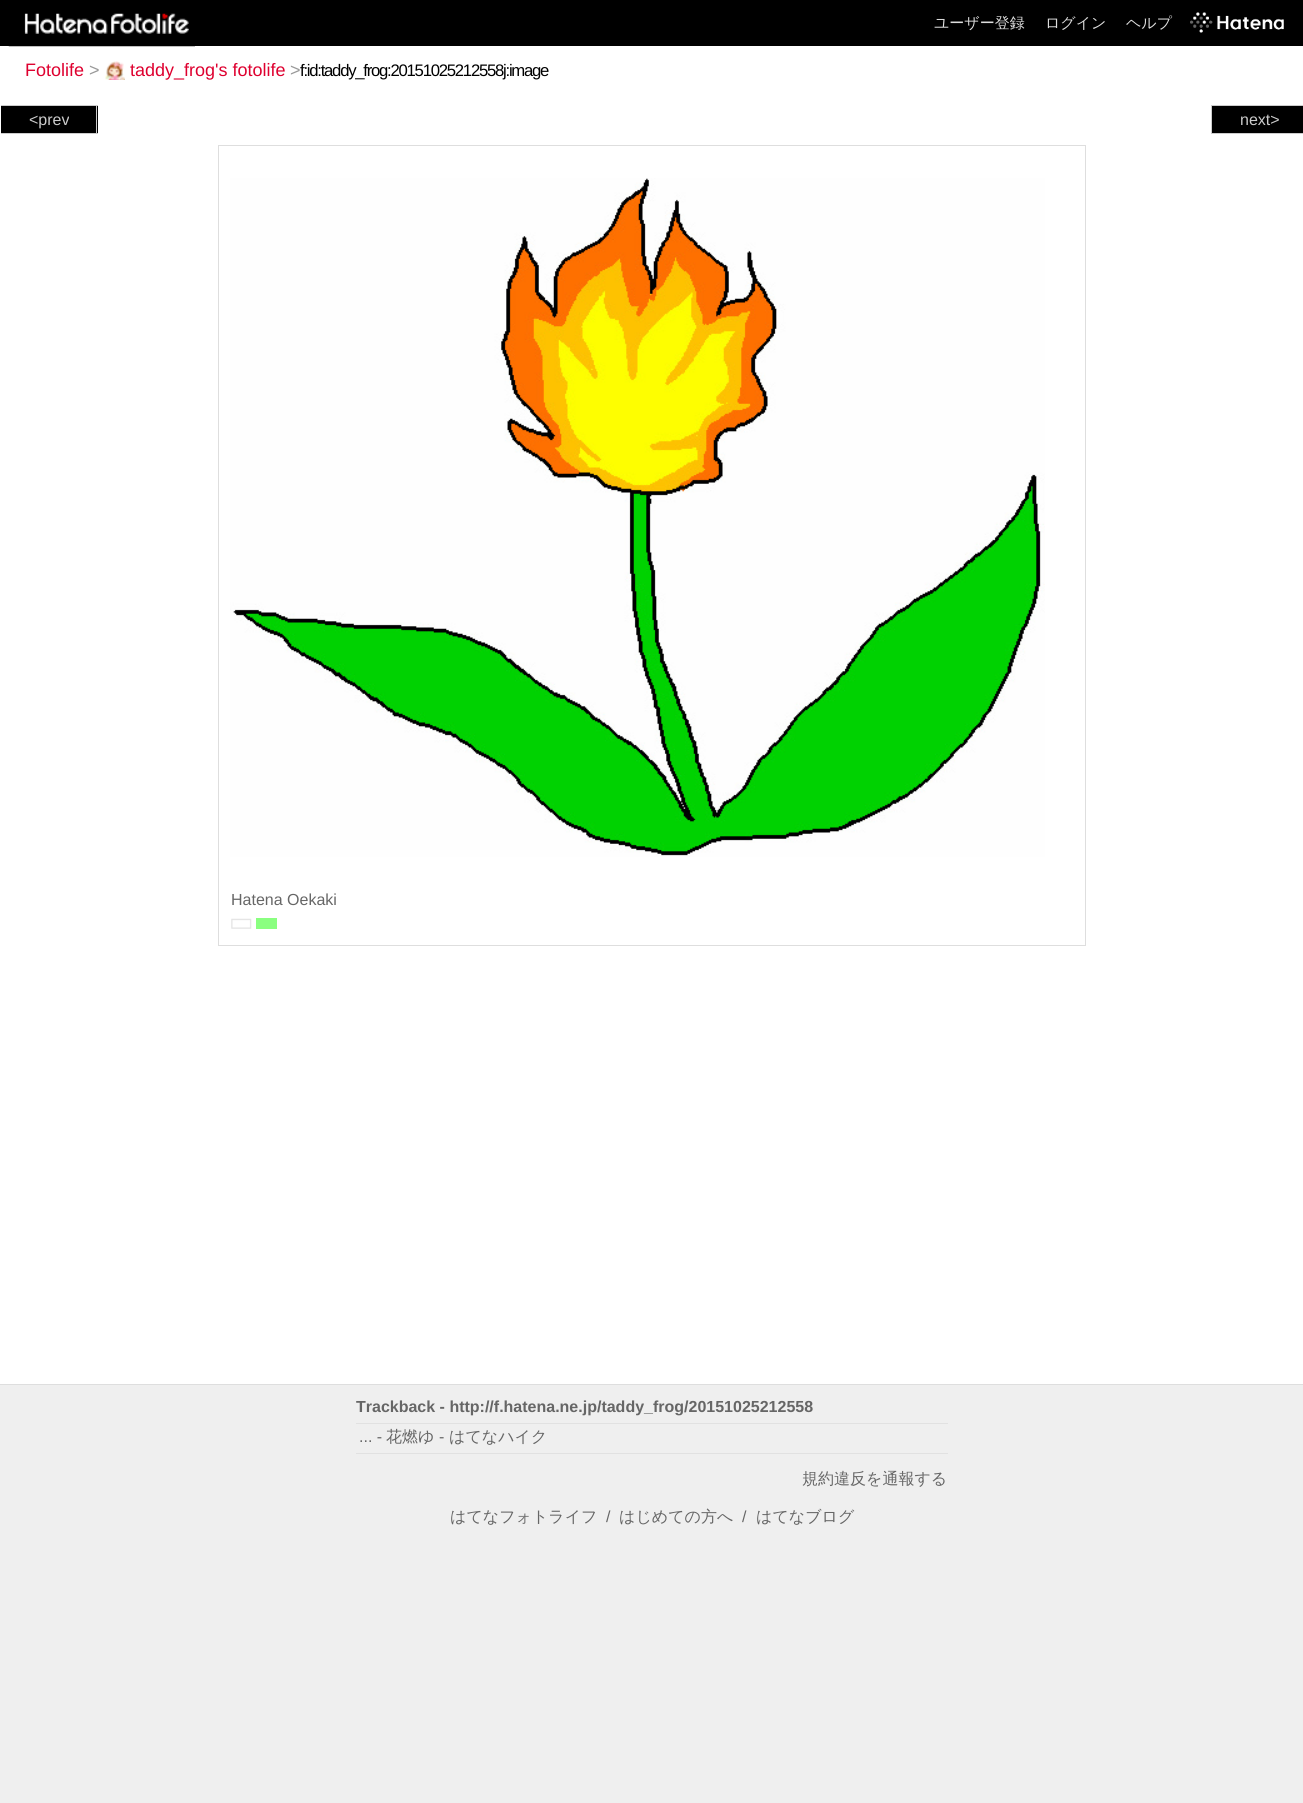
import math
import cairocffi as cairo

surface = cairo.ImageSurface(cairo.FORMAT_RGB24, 1303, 1803)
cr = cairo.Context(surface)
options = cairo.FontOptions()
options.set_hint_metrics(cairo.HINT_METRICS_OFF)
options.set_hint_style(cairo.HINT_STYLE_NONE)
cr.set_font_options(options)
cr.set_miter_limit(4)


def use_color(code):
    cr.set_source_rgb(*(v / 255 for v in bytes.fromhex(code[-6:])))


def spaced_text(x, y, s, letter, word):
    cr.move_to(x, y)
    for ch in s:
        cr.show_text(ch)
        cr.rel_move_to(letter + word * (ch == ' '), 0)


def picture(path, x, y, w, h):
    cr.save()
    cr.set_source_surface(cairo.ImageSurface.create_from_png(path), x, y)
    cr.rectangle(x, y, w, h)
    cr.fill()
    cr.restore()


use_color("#efefef")
cr.paint()
use_color("#000000")
cr.rectangle(0, 0, 1303, 46)
cr.fill()
use_color("#ffffff")
cr.rectangle(0, 46, 1303, 1338)
cr.fill()
picture("img1.png", 8, 13, 104, 34)
picture("img2.png", 111, 13, 84, 34)
cr.select_font_face("WenQuanYi Zen Hei Medium")
cr.set_font_size(15)
use_color("#dddddd")
cr.move_to(934, 28)
cr.show_text("ユーザー登録")
cr.move_to(1045, 28)
cr.show_text("ログイン")
cr.move_to(1126, 28)
cr.show_text("ヘルプ")
picture("img3.png", 1190, 12, 94, 21)
cr.select_font_face("Liberation Sans")
cr.set_font_size(18)
use_color("#de002f")
cr.move_to(25, 76)
cr.show_text("Fotolife")
use_color("#999999")
cr.move_to(89, 76)
cr.show_text(">")
picture("img4.png", 105, 61, 20, 19)
use_color("#de002f")
cr.move_to(130, 76)
cr.show_text("taddy_frog's fotolife")
use_color("#999999")
cr.move_to(290, 76)
cr.show_text(">")
cr.set_font_size(16.7)
use_color("#000000")
spaced_text(300, 76, "f:id:taddy_frog:20151025212558j:image", -1.25, 0)
use_color("#dedede")
cr.rectangle(0, 1384, 1303, 1)
cr.fill()
use_color("#000000")
cr.rectangle(1, 106, 97, 27)
cr.fill()
use_color("#cccccc")
cr.rectangle(1, 105, 97, 1)
cr.fill()
cr.rectangle(96, 105, 1, 29)
cr.fill()
cr.rectangle(1, 133, 97, 1)
cr.fill()
cr.set_font_size(16)
cr.move_to(29, 125)
cr.show_text("<prev")
use_color("#000000")
cr.rectangle(1212, 106, 91, 27)
cr.fill()
use_color("#cccccc")
cr.rectangle(1211, 105, 92, 1)
cr.fill()
cr.rectangle(1211, 133, 92, 1)
cr.fill()
cr.rectangle(1211, 105, 1, 29)
cr.fill()
cr.move_to(1240, 125)
cr.show_text("next>")
cr.rectangle(218.5, 145.5, 867, 800)
use_color("#dedede")
cr.set_line_width(1)
cr.stroke()
picture("img5.png", 230, 178, 815, 679)
use_color("#666666")
cr.move_to(231, 905)
cr.show_text("Hatena Oekaki")
picture("img6.png", 231, 918, 21, 11)
use_color("#8aff80")
cr.rectangle(256, 918, 21, 11)
cr.fill()
cr.select_font_face("Liberation Sans", cairo.FONT_SLANT_NORMAL, cairo.FONT_WEIGHT_BOLD)
use_color("#666666")
cr.move_to(356, 1412)
cr.show_text("Trackback - http://f.hatena.ne.jp/taddy_frog/20151025212558")
use_color("#e1e1e1")
cr.rectangle(356, 1423, 592, 1)
cr.fill()
cr.rectangle(356, 1453, 592, 1)
cr.fill()
cr.select_font_face("Liberation Sans")
use_color("#666666")
cr.move_to(359, 1442)
cr.show_text("... -")
cr.select_font_face("WenQuanYi Zen Hei Medium")
cr.move_to(386, 1442)
cr.show_text("花燃ゆ")
cr.select_font_face("Liberation Sans")
cr.move_to(439, 1442)
cr.show_text("-")
cr.select_font_face("WenQuanYi Zen Hei Medium")
cr.move_to(449, 1442)
cr.show_text("はてなハイク")
cr.move_to(802, 1484)
cr.show_text("規約違反を通報する")
cr.move_to(450, 1522)
cr.show_text("はてなフォトライフ")
cr.select_font_face("Liberation Sans")
cr.move_to(606, 1522)
cr.show_text("/")
cr.select_font_face("WenQuanYi Zen Hei Medium")
cr.move_to(619, 1522)
cr.show_text("はじめての方へ")
cr.select_font_face("Liberation Sans")
cr.move_to(742, 1522)
cr.show_text("/")
cr.select_font_face("WenQuanYi Zen Hei Medium")
cr.move_to(756, 1522)
cr.show_text("はてなブログ")
surface.write_to_png("result.png")
